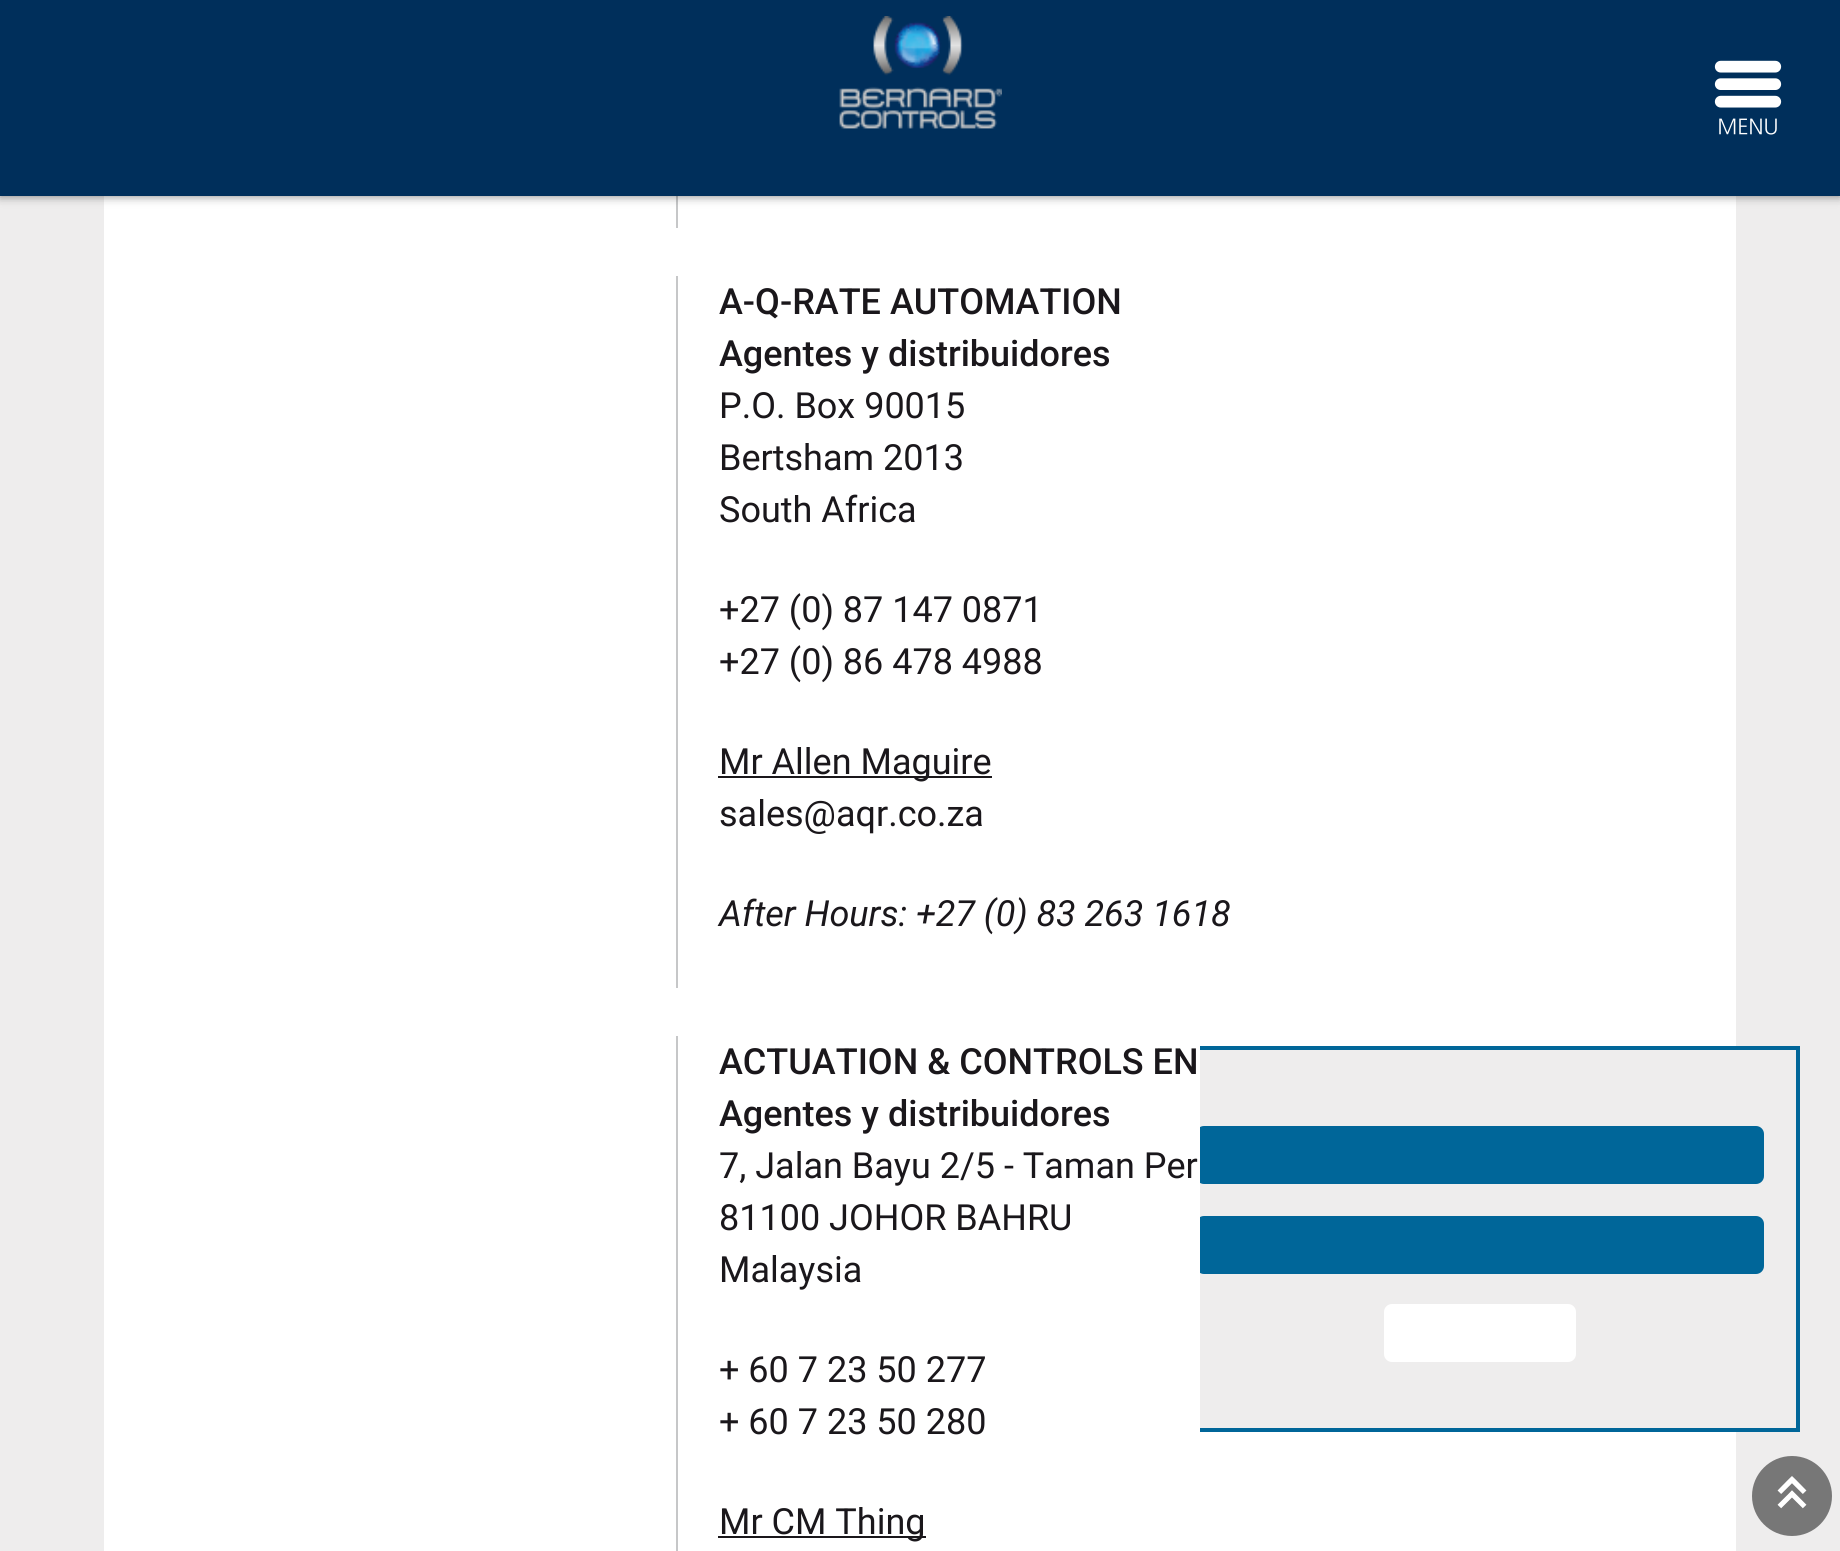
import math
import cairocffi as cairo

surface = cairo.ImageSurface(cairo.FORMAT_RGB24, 1840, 1551)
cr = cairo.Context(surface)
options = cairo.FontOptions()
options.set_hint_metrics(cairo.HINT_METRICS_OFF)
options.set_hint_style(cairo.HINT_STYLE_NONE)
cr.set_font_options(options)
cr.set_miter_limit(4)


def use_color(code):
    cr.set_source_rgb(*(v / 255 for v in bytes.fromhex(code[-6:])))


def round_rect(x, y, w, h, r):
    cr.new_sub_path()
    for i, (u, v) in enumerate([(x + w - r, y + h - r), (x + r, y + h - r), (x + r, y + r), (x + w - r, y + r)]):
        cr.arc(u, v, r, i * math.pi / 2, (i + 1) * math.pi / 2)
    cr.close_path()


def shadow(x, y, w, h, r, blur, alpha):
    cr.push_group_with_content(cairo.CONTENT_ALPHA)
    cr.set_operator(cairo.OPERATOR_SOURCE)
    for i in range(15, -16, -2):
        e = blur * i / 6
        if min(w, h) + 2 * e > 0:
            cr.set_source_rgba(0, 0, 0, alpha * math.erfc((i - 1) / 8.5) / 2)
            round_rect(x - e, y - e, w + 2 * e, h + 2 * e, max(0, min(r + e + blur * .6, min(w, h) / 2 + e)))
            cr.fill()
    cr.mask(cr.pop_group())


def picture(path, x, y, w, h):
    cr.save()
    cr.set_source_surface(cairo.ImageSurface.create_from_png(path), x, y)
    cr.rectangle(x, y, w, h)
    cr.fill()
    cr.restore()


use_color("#eeeded")
cr.paint()
use_color("#ffffff")
cr.rectangle(104, 196, 1632, 1355)
cr.fill()
use_color("#c6c7c8")
cr.rectangle(676, 196, 2, 32)
cr.fill()
use_color("#000000")
shadow(0, 0, 1840, 196, 0, 5, 0.5)
use_color("#002f5b")
cr.rectangle(0, 0, 1840, 196)
cr.fill()
picture("img1.png", 839, 16, 163, 113)
picture("img2.png", 1714, 60, 68, 75)
use_color("#c6c7c8")
cr.rectangle(676, 276, 2, 712)
cr.fill()
cr.select_font_face("Roboto Medium")
cr.set_font_size(36)
use_color("#1a171b")
cr.move_to(719, 314)
cr.show_text("A-Q-RATE AUTOMATION")
cr.move_to(719, 366)
cr.show_text("Agentes y distribuidores")
cr.select_font_face("Roboto")
cr.move_to(719, 418)
cr.show_text("P.O. Box 90015")
cr.move_to(719, 470)
cr.show_text("Bertsham 2013")
cr.move_to(719, 522)
cr.show_text("South Africa")
cr.move_to(719, 622)
cr.show_text("+27 (0) 87 147 0871")
cr.move_to(719, 674)
cr.show_text("+27 (0) 86 478 4988")
cr.rectangle(718, 776, 274, 2)
cr.fill()
cr.move_to(719, 774)
cr.show_text("Mr Allen Maguire")
cr.move_to(719, 826)
cr.show_text("sales@aqr.co.za")
cr.select_font_face("Roboto", cairo.FONT_SLANT_ITALIC)
cr.move_to(719, 926)
cr.show_text("After Hours: +27 (0) 83 263 1618")
use_color("#c6c7c8")
cr.rectangle(676, 1036, 2, 515)
cr.fill()
cr.select_font_face("Roboto Medium")
use_color("#1a171b")
cr.move_to(719, 1074)
cr.show_text("ACTUATION & CONTROLS EN")
cr.move_to(719, 1126)
cr.show_text("Agentes y distribuidores")
cr.select_font_face("Roboto")
cr.move_to(719, 1178)
cr.show_text("7, Jalan Bayu 2/5 - Taman Per")
cr.move_to(719, 1230)
cr.show_text("81100 JOHOR BAHRU")
cr.move_to(719, 1282)
cr.show_text("Malaysia")
cr.move_to(719, 1382)
cr.show_text("+ 60 7 23 50 277")
cr.move_to(719, 1434)
cr.show_text("+ 60 7 23 50 280")
cr.rectangle(718, 1536, 208, 2)
cr.fill()
cr.move_to(719, 1534)
cr.show_text("Mr CM Thing")
use_color("#eeeded")
cr.rectangle(1200, 1050, 536, 378)
cr.fill()
cr.save()
cr.rectangle(1200, 1026, 640, 426)
cr.clip()
cr.rectangle(1162, 1048, 636, 382)
use_color("#006699")
cr.set_line_width(4)
cr.stroke()
round_rect(1196, 1126, 568, 58, 8)
cr.fill()
round_rect(1196, 1216, 568, 58, 8)
cr.fill()
cr.restore()
use_color("#ffffff")
round_rect(1384, 1304, 192, 58, 8)
cr.fill()
use_color("#777777")
cr.arc(1792, 1496, 40, 0, 2 * math.pi)
cr.fill()
picture("img3.png", 1777, 1476, 30, 33)
surface.write_to_png("result.png")
